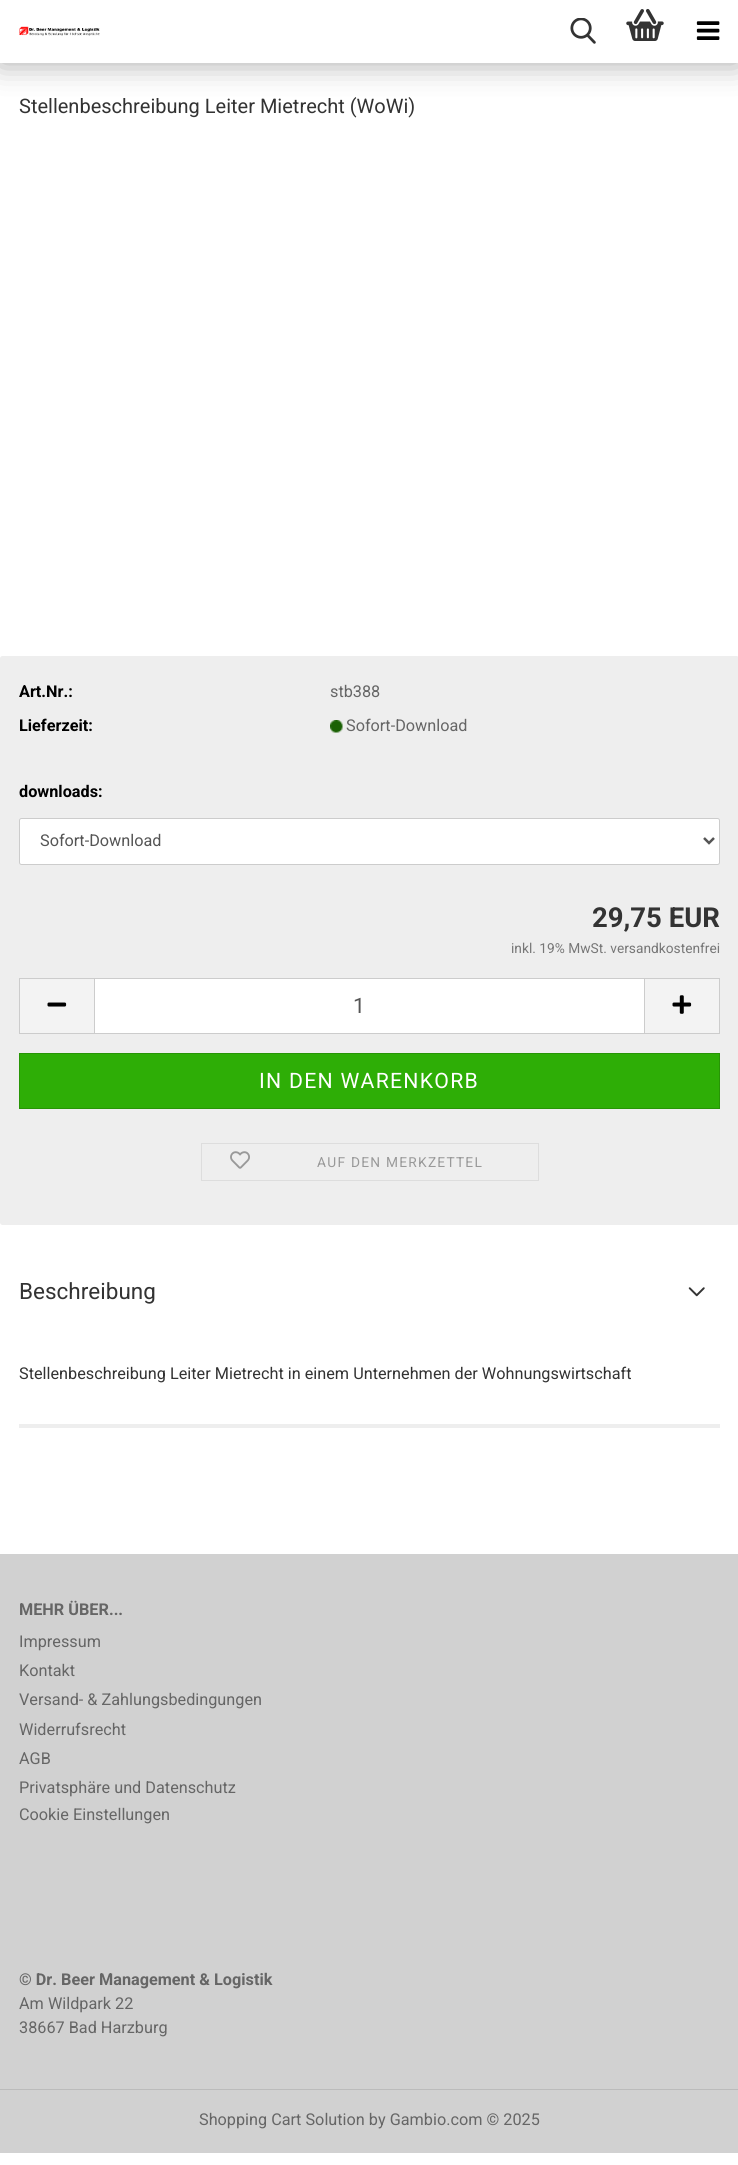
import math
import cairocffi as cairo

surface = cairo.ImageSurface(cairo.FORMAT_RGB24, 738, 2165)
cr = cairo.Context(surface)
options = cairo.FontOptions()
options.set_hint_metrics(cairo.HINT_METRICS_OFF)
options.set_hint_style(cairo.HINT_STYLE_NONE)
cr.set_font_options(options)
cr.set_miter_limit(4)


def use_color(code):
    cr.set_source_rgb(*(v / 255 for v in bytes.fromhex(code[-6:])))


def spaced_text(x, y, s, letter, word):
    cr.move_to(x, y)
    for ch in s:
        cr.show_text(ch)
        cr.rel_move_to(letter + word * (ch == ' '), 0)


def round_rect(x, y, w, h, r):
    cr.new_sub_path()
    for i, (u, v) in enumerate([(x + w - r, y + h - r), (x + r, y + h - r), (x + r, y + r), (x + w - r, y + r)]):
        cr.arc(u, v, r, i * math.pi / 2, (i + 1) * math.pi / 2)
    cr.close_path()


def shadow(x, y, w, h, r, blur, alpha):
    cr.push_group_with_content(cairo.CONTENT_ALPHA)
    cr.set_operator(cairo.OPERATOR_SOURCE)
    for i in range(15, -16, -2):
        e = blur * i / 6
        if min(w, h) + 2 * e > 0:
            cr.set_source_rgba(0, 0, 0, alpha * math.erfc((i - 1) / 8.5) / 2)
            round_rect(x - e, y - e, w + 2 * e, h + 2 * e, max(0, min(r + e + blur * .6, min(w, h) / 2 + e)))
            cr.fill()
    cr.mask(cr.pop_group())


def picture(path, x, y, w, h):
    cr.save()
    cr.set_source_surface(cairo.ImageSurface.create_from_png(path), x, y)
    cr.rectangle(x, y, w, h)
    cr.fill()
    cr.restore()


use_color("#ffffff")
cr.paint()
use_color("#000000")
shadow(0, 0, 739, 63, 0, 15.5, 0.35)
use_color("#ffffff")
cr.rectangle(0, 0, 738, 63)
cr.fill()
picture("img1.png", 19, 26, 81, 10)
picture("img2.png", 570, 18, 26, 26)
picture("img3.png", 626, 8, 38, 33)
picture("img4.png", 696, 21, 24, 19)
cr.select_font_face("Roboto")
cr.set_font_size(20)
use_color("#333333")
cr.move_to(19, 113)
cr.show_text("Stellenbeschreibung Leiter Mietrecht (WoWi)")
use_color("#eeeeee")
round_rect(0, 656, 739, 569, 2.5)
cr.fill()
cr.select_font_face("Roboto", cairo.FONT_SLANT_NORMAL, cairo.FONT_WEIGHT_BOLD)
cr.set_font_size(16.25)
use_color("#000000")
cr.move_to(19, 697)
cr.show_text("Art.Nr.:")
cr.select_font_face("Roboto")
use_color("#666666")
cr.move_to(330, 697)
cr.show_text("stb388")
cr.select_font_face("Roboto", cairo.FONT_SLANT_NORMAL, cairo.FONT_WEIGHT_BOLD)
use_color("#000000")
cr.move_to(19, 731)
cr.show_text("Lieferzeit:")
picture("img5.png", 330, 720, 13, 13)
cr.select_font_face("Roboto")
use_color("#666666")
cr.move_to(346, 731)
cr.show_text("Sofort-Download")
cr.select_font_face("Roboto", cairo.FONT_SLANT_NORMAL, cairo.FONT_WEIGHT_BOLD)
use_color("#000000")
cr.move_to(19, 797)
cr.show_text("downloads:")
use_color("#ffffff")
round_rect(19.5, 818.5, 700, 46, 2)
cr.fill_preserve()
use_color("#cccccc")
cr.set_line_width(1)
cr.stroke()
cr.new_path()
cr.move_to(704, 838)
cr.line_to(709, 843)
cr.line_to(714, 838)
use_color("#555555")
cr.set_line_width(2.5)
cr.stroke()
cr.select_font_face("Roboto")
cr.move_to(40, 846)
cr.show_text("Sofort-Download")
cr.select_font_face("Roboto", cairo.FONT_SLANT_NORMAL, cairo.FONT_WEIGHT_BOLD)
cr.set_font_size(27.5)
use_color("#333333")
cr.move_to(592, 927)
cr.show_text("29,75 EUR")
cr.select_font_face("Roboto")
cr.set_font_size(13.75)
use_color("#777777")
cr.move_to(511, 953)
cr.show_text("inkl. 19% MwSt. versandkostenfrei")
use_color("#f3f3f3")
cr.rectangle(20, 979, 74, 54)
cr.fill()
use_color("#cccccc")
cr.rectangle(19, 978, 75, 1)
cr.fill()
cr.rectangle(19, 1033, 75, 1)
cr.fill()
cr.rectangle(19, 978, 1, 56)
cr.fill()
picture("img6.png", 47, 1002, 20, 5)
use_color("#ffffff")
cr.rectangle(94.5, 978.5, 550, 55)
cr.fill_preserve()
use_color("#cccccc")
cr.set_line_width(1)
cr.stroke()
cr.set_font_size(21.25)
use_color("#555555")
cr.move_to(353, 1013)
cr.show_text("1")
use_color("#f3f3f3")
cr.rectangle(645, 979, 74, 54)
cr.fill()
use_color("#cccccc")
cr.rectangle(645, 978, 75, 1)
cr.fill()
cr.rectangle(719, 978, 1, 56)
cr.fill()
cr.rectangle(645, 1033, 75, 1)
cr.fill()
picture("img7.png", 672, 995, 20, 19)
use_color("#2eae06")
cr.rectangle(19.5, 1053.5, 700, 55)
cr.fill_preserve()
use_color("#279505")
cr.stroke()
use_color("#ffffff")
spaced_text(259, 1088, "IN DEN WARENKORB", 1.25, 0)
cr.rectangle(201.5, 1143.5, 337, 37)
use_color("#dddddd")
cr.stroke()
picture("img8.png", 230, 1151, 20, 18)
cr.set_font_size(13.75)
use_color("#999999")
spaced_text(317, 1167, "AUF DEN MERKZETTEL", 1.25, 0)
cr.set_font_size(22.5)
use_color("#333333")
cr.move_to(19, 1299)
cr.show_text("Beschreibung")
picture("img9.png", 688, 1287, 17, 10)
use_color("#eeeeee")
cr.rectangle(19, 1424, 701, 4)
cr.fill()
cr.set_font_size(16.25)
use_color("#333333")
cr.move_to(19, 1379)
cr.show_text("Stellenbeschreibung Leiter Mietrecht in einem Unternehmen der Wohnungswirtschaft")
use_color("#d1d1d1")
cr.rectangle(0, 1554, 738, 599)
cr.fill()
use_color("#bbbbbb")
cr.rectangle(0, 2089, 738, 1)
cr.fill()
cr.select_font_face("Roboto", cairo.FONT_SLANT_NORMAL, cairo.FONT_WEIGHT_BOLD)
use_color("#666666")
cr.move_to(19, 1615)
cr.show_text("MEHR ÜBER...")
cr.select_font_face("Roboto")
cr.move_to(19, 1647)
cr.show_text("Impressum")
cr.move_to(19, 1676)
cr.show_text("Kontakt")
cr.move_to(19, 1705)
cr.show_text("Versand- & Zahlungsbedingungen")
cr.move_to(19, 1735)
cr.show_text("Widerrufsrecht")
cr.move_to(19, 1764)
cr.show_text("AGB")
cr.move_to(19, 1793)
cr.show_text("Privatsphäre und Datenschutz")
cr.move_to(19, 1820)
cr.show_text("Cookie Einstellungen")
cr.select_font_face("Roboto", cairo.FONT_SLANT_NORMAL, cairo.FONT_WEIGHT_BOLD)
cr.move_to(19, 1985)
cr.show_text("© Dr. Beer Management & Logistik")
cr.select_font_face("Roboto")
cr.move_to(19, 2009)
cr.show_text("Am Wildpark 22")
cr.move_to(19, 2033)
cr.show_text("38667 Bad Harzburg")
cr.move_to(199, 2125)
cr.show_text("Shopping Cart Solution by Gambio.com © 2025")
surface.write_to_png("result.png")
